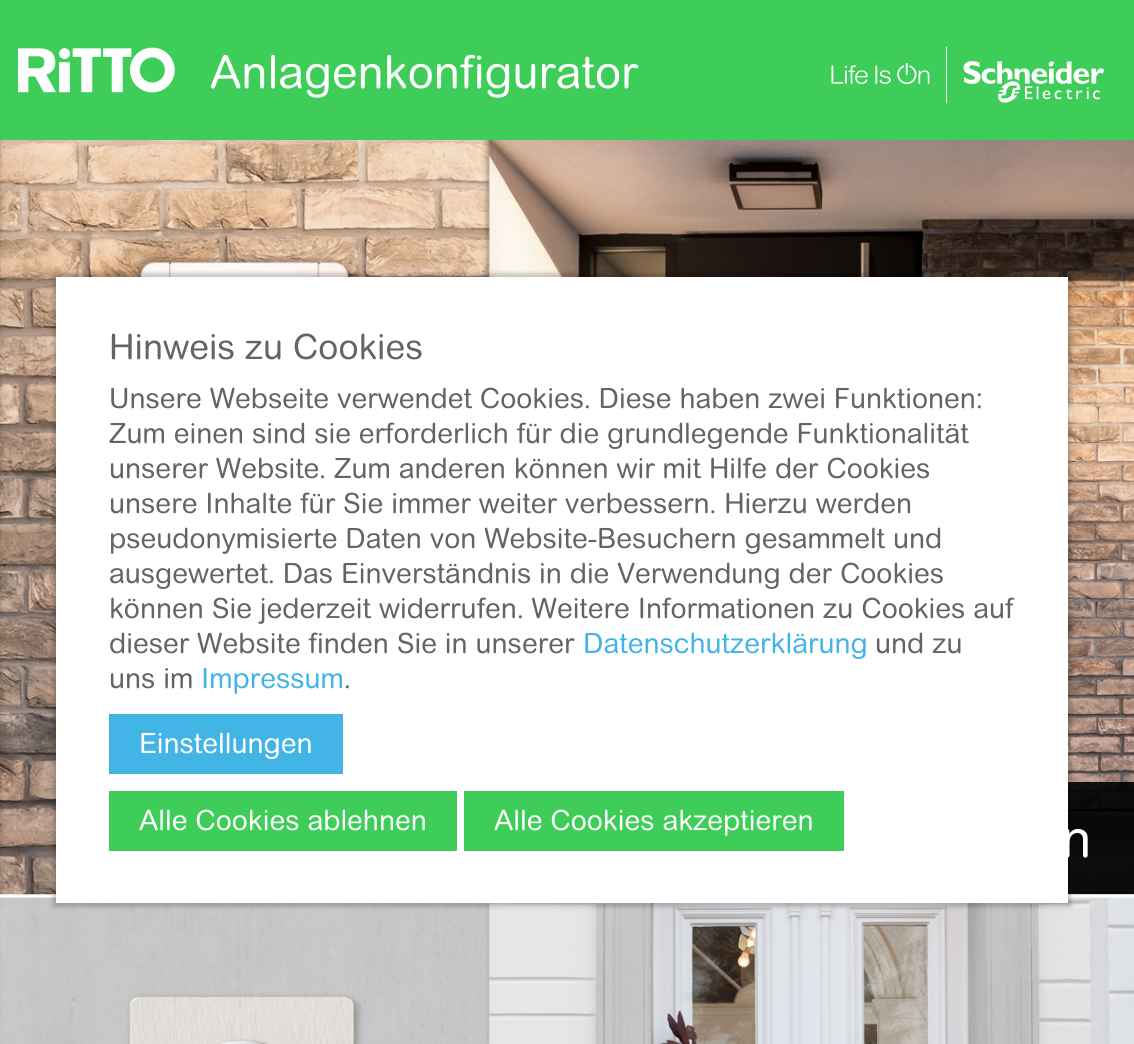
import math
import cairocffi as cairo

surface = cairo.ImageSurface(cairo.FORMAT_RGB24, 1134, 1044)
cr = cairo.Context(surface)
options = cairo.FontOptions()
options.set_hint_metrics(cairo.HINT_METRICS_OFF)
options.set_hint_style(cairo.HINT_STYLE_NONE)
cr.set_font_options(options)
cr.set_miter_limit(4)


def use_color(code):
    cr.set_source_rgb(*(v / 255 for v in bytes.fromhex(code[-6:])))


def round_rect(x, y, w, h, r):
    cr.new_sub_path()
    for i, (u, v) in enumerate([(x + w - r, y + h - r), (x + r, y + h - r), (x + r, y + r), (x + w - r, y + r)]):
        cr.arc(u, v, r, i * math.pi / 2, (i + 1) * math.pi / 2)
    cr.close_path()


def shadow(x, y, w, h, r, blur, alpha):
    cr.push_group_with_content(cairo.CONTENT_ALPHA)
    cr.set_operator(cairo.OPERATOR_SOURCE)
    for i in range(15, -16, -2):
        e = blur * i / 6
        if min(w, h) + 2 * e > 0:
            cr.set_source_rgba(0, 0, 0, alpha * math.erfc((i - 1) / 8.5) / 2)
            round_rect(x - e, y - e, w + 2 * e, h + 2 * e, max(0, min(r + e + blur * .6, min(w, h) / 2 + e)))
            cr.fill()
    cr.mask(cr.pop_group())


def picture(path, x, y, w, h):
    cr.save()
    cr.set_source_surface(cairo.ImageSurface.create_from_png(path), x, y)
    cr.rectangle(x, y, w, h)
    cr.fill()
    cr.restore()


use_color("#3dcd58")
cr.paint()
picture("img1.png", 18, 47, 157, 46)
cr.select_font_face("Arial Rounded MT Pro")
cr.set_font_size(45.5)
use_color("#ffffff")
cr.move_to(210, 88)
cr.show_text("Anlagenkonfigurator")
picture("img2.png", 831, 46, 273, 58)
use_color("#fafafa")
cr.rectangle(0, 894, 1134, 4)
cr.fill()
picture("img3.png", 0, 140, 1134, 755)
cr.set_source_rgba(0, 0, 0, 0.9)
cr.rectangle(1068, 782, 66, 112)
cr.fill()
picture("img4.png", 0, 897, 1134, 147)
use_color("#000000")
shadow(53, 273, 1018, 634, 0, 2, 0.2)
use_color("#ffffff")
cr.rectangle(56, 277, 1012, 626)
cr.fill()
cr.set_font_size(35)
use_color("#626469")
cr.move_to(109, 359)
cr.show_text("Hinweis zu Cookies")
cr.set_font_size(28)
cr.move_to(109, 408)
cr.show_text("Unsere Webseite verwendet Cookies. Diese haben zwei Funktionen:")
cr.move_to(109, 443)
cr.show_text("Zum einen sind sie erforderlich für die grundlegende Funktionalität")
cr.move_to(109, 478)
cr.show_text("unserer Website. Zum anderen können wir mit Hilfe der Cookies")
cr.move_to(109, 513)
cr.show_text("unsere Inhalte für Sie immer weiter verbessern. Hierzu werden")
cr.move_to(109, 548)
cr.show_text("pseudonymisierte Daten von Website-Besuchern gesammelt und")
cr.move_to(109, 583)
cr.show_text("ausgewertet. Das Einverständnis in die Verwendung der Cookies")
cr.move_to(109, 618)
cr.show_text("können Sie jederzeit widerrufen. Weitere Informationen zu Cookies auf")
cr.move_to(109, 653)
cr.show_text("dieser Website finden Sie in unserer")
use_color("#42b4e6")
cr.move_to(583, 653)
cr.show_text("Datenschutzerklärung")
use_color("#626469")
cr.move_to(875, 653)
cr.show_text("und zu")
cr.move_to(109, 688)
cr.show_text("uns im")
use_color("#42b4e6")
cr.move_to(201, 688)
cr.show_text("Impressum")
use_color("#626469")
cr.move_to(344, 688)
cr.show_text(".")
use_color("#42b4e6")
cr.rectangle(109, 714, 234, 60)
cr.fill()
use_color("#ffffff")
cr.move_to(139, 753)
cr.show_text("Einstellungen")
use_color("#3dcd58")
cr.rectangle(109, 791, 348, 60)
cr.fill()
use_color("#ffffff")
cr.move_to(139, 830)
cr.show_text("Alle Cookies ablehnen")
use_color("#3dcd58")
cr.rectangle(464, 791, 380, 60)
cr.fill()
use_color("#ffffff")
cr.move_to(494, 830)
cr.show_text("Alle Cookies akzeptieren")
cr.set_font_size(53)
cr.move_to(1061, 857)
cr.show_text("n")
surface.write_to_png("result.png")
